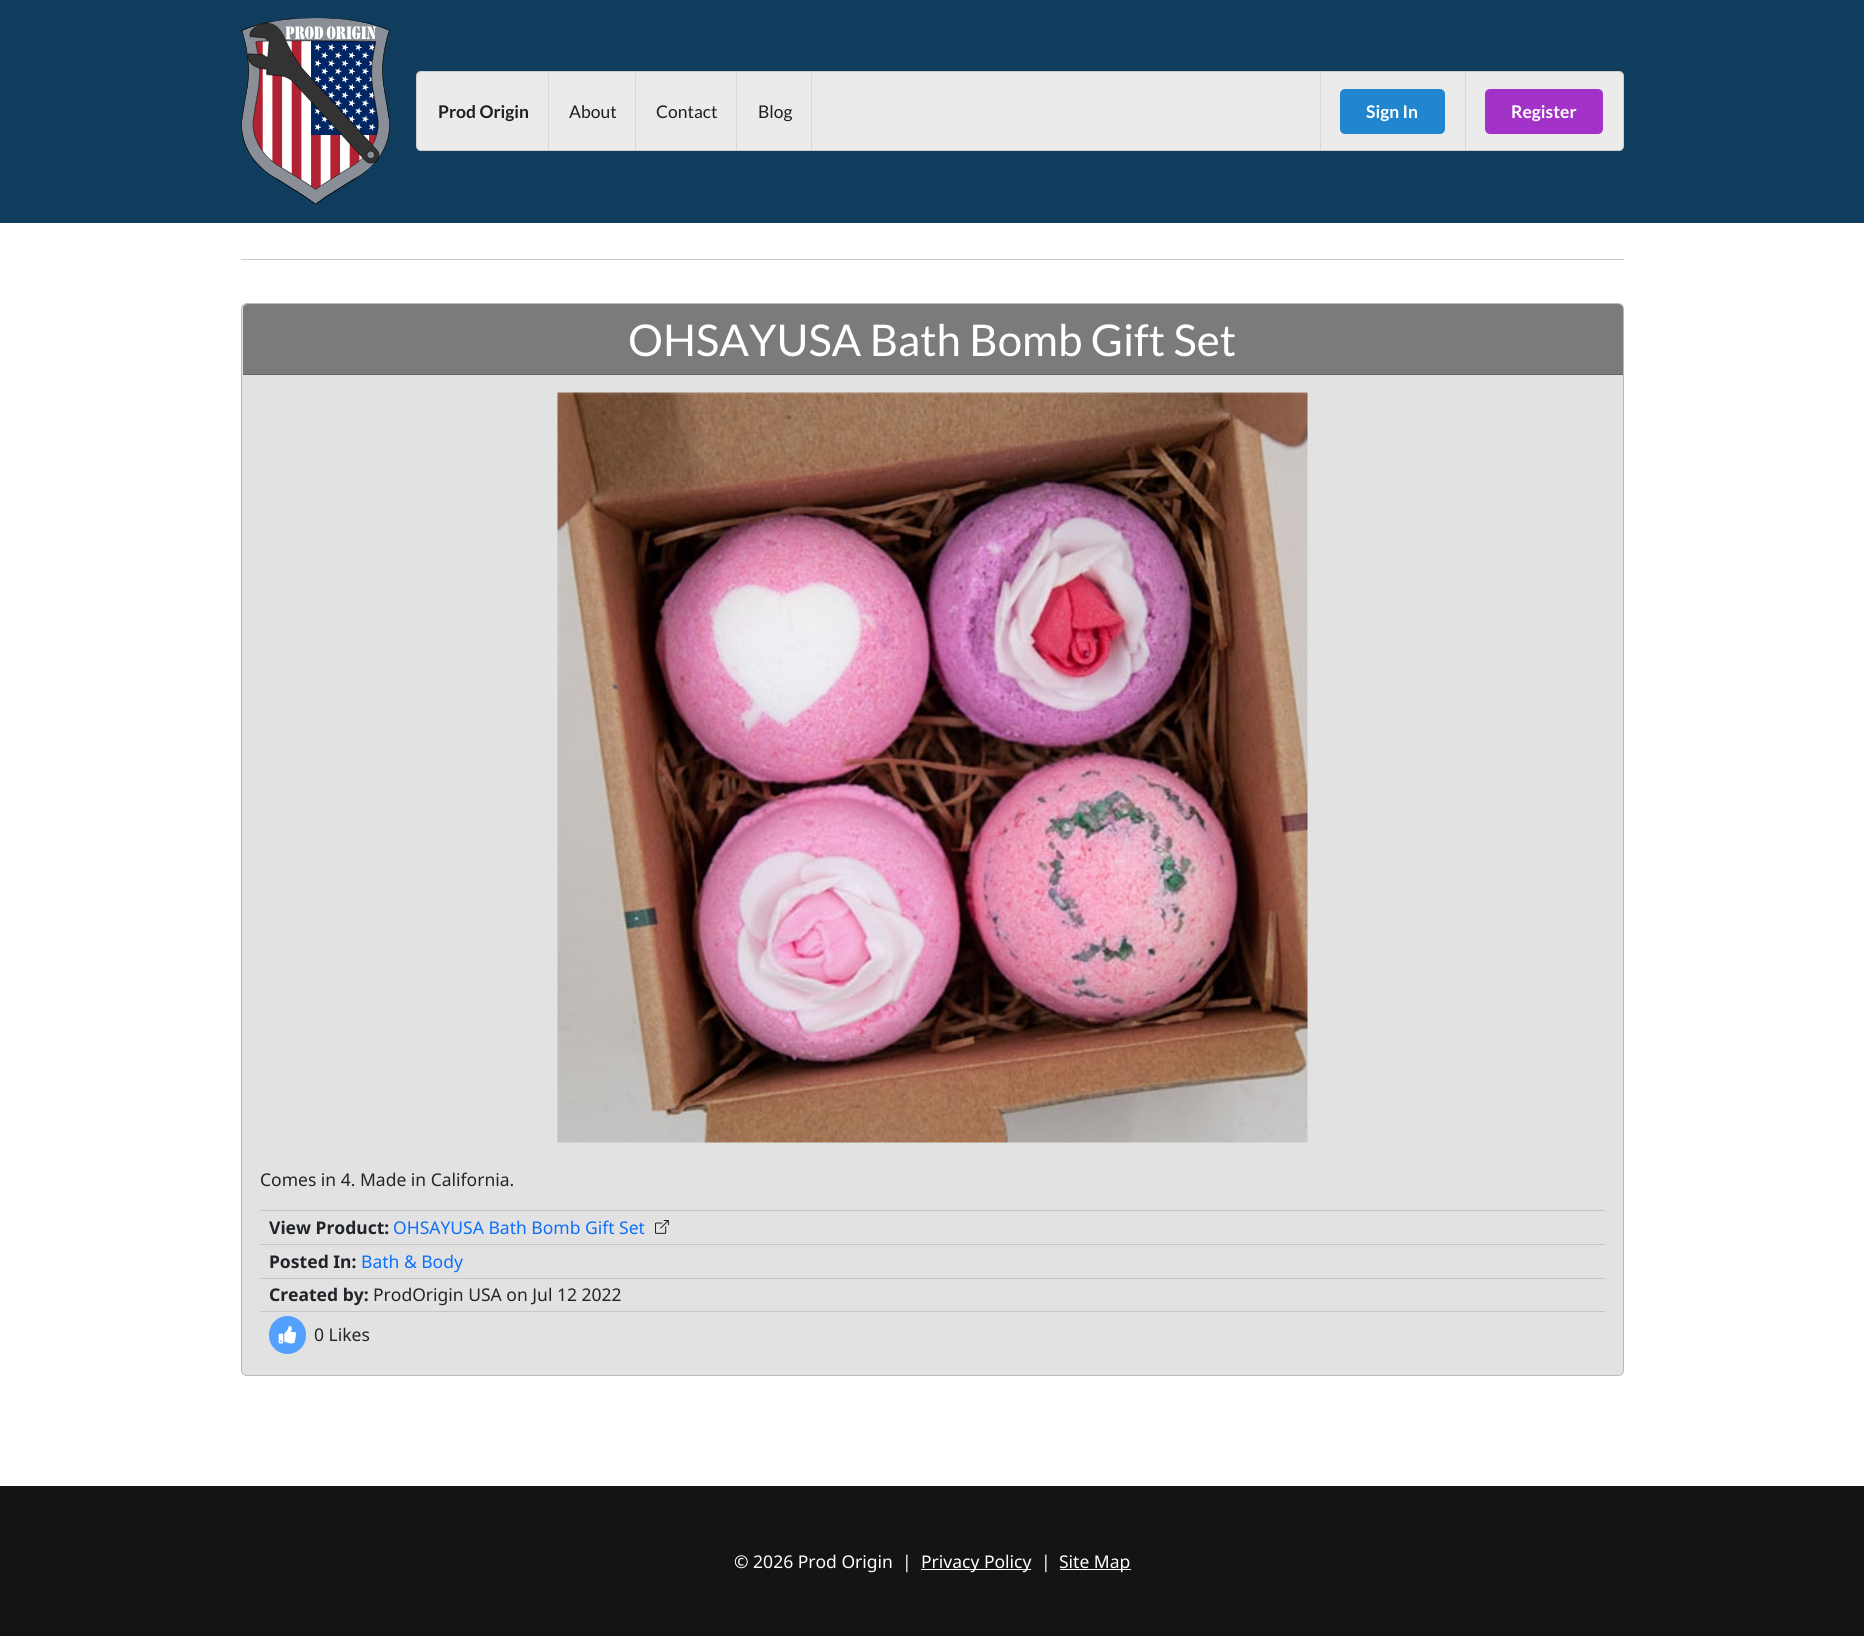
import math
import cairocffi as cairo

surface = cairo.ImageSurface(cairo.FORMAT_RGB24, 1864, 1636)
cr = cairo.Context(surface)
options = cairo.FontOptions()
options.set_hint_metrics(cairo.HINT_METRICS_OFF)
options.set_hint_style(cairo.HINT_STYLE_NONE)
cr.set_font_options(options)
cr.set_miter_limit(4)


def use_color(code):
    cr.set_source_rgb(*(v / 255 for v in bytes.fromhex(code[-6:])))


def round_rect(x, y, w, h, r):
    cr.new_sub_path()
    for i, (u, v) in enumerate([(x + w - r, y + h - r), (x + r, y + h - r), (x + r, y + r), (x + w - r, y + r)]):
        cr.arc(u, v, r, i * math.pi / 2, (i + 1) * math.pi / 2)
    cr.close_path()


def picture(path, x, y, w, h):
    cr.save()
    cr.set_source_surface(cairo.ImageSurface.create_from_png(path), x, y)
    cr.rectangle(x, y, w, h)
    cr.fill()
    cr.restore()


use_color("#ffffff")
cr.paint()
use_color("#103c5d")
cr.rectangle(0, 0, 1864, 223)
cr.fill()
picture("img1.png", 241, 18, 149, 187)
use_color("#ebebeb")
round_rect(416, 71, 1208, 80, 5)
cr.fill()
round_rect(416.5, 71.5, 1207, 79, 4.5)
cr.set_source_rgba(0.133, 0.141, 0.149, 0.15)
cr.set_line_width(1)
cr.stroke()
cr.select_font_face("Lato", cairo.FONT_SLANT_NORMAL, cairo.FONT_WEIGHT_BOLD)
cr.set_font_size(17.5)
use_color("#1f1f1f")
cr.move_to(438, 118)
cr.show_text("Prod Origin")
use_color("#d7d7d7")
cr.rectangle(548, 73, 1, 77)
cr.fill()
cr.select_font_face("Lato")
use_color("#1f1f1f")
cr.move_to(569, 118)
cr.show_text("About")
use_color("#d7d7d7")
cr.rectangle(635, 73, 1, 77)
cr.fill()
use_color("#1f1f1f")
cr.move_to(656, 118)
cr.show_text("Contact")
use_color("#d7d7d7")
cr.rectangle(736, 73, 1, 77)
cr.fill()
use_color("#1f1f1f")
cr.move_to(758, 118)
cr.show_text("Blog")
use_color("#d7d7d7")
cr.rectangle(811, 73, 1, 77)
cr.fill()
cr.rectangle(1320, 73, 1, 77)
cr.fill()
use_color("#2185d0")
round_rect(1340, 89, 105, 45, 5)
cr.fill()
cr.select_font_face("Lato", cairo.FONT_SLANT_NORMAL, cairo.FONT_WEIGHT_BOLD)
use_color("#ffffff")
cr.move_to(1366, 118)
cr.show_text("Sign In")
use_color("#d7d7d7")
cr.rectangle(1465, 73, 1, 77)
cr.fill()
use_color("#a333c8")
round_rect(1485, 89, 118, 45, 5)
cr.fill()
use_color("#ffffff")
cr.move_to(1511, 118)
cr.show_text("Register")
use_color("#c8c9ca")
cr.rectangle(241, 259, 1383, 1)
cr.fill()
use_color("#e2e2e2")
round_rect(241, 303, 1383, 1073, 6)
cr.fill()
round_rect(241.5, 303.5, 1382, 1072, 5.5)
cr.set_source_rgba(0, 0, 0, 0.18)
cr.stroke()
use_color("#7b7b7b")
cr.new_path()
cr.move_to(248, 304)
cr.line_to(1618, 304)
cr.curve_to(1621, 304, 1623, 306, 1623, 309)
cr.line_to(1623, 375)
cr.line_to(243, 375)
cr.line_to(243, 309)
cr.curve_to(243, 306, 245, 304, 248, 304)
cr.close_path()
cr.fill()
use_color("#656565")
cr.rectangle(243, 374, 1380, 1)
cr.fill()
cr.select_font_face("Lato")
cr.set_font_size(43.75)
use_color("#ffffff")
cr.move_to(628, 356)
cr.show_text("OHSAYUSA Bath Bomb Gift Set")
picture("img2.png", 557, 392, 751, 751)
cr.select_font_face("Noto Sans")
cr.set_font_size(17.5)
use_color("#212529")
cr.move_to(260, 1186)
cr.show_text("Comes in 4. Made in California.")
use_color("#c5c6c6")
cr.rectangle(260, 1210, 1345, 1)
cr.fill()
cr.select_font_face("Noto Sans", cairo.FONT_SLANT_NORMAL, cairo.FONT_WEIGHT_BOLD)
use_color("#212529")
cr.move_to(269, 1234)
cr.show_text("View Product:")
cr.select_font_face("Noto Sans")
use_color("#0d6efd")
cr.move_to(393, 1234)
cr.show_text("OHSAYUSA Bath Bomb Gift Set")
picture("img3.png", 655, 1220, 14, 14)
use_color("#c5c6c6")
cr.rectangle(260, 1244, 1345, 1)
cr.fill()
cr.select_font_face("Noto Sans", cairo.FONT_SLANT_NORMAL, cairo.FONT_WEIGHT_BOLD)
use_color("#212529")
cr.move_to(269, 1268)
cr.show_text("Posted In:")
cr.select_font_face("Noto Sans")
use_color("#0d6efd")
cr.move_to(361, 1268)
cr.show_text("Bath & Body")
use_color("#c5c6c6")
cr.rectangle(260, 1278, 1345, 1)
cr.fill()
cr.select_font_face("Noto Sans", cairo.FONT_SLANT_NORMAL, cairo.FONT_WEIGHT_BOLD)
use_color("#212529")
cr.move_to(269, 1301)
cr.show_text("Created by:")
cr.select_font_face("Noto Sans")
cr.move_to(373, 1301)
cr.show_text("ProdOrigin USA on Jul 12 2022")
use_color("#c5c6c6")
cr.rectangle(260, 1311, 1345, 1)
cr.fill()
use_color("#54a0ff")
round_rect(269, 1316, 37, 38, 18.5)
cr.fill()
picture("img4.png", 278, 1326, 19, 18)
use_color("#212529")
cr.move_to(314, 1341)
cr.show_text("0 Likes")
use_color("#141414")
cr.rectangle(0, 1486, 1864, 150)
cr.fill()
use_color("#ffffff")
cr.move_to(734, 1568)
cr.show_text("© 2026 Prod Origin  |")
cr.rectangle(921, 1569, 110, 1)
cr.fill()
cr.move_to(921, 1568)
cr.show_text("Privacy Policy")
cr.move_to(1041, 1568)
cr.show_text("|")
cr.rectangle(1060, 1569, 71, 1)
cr.fill()
cr.move_to(1059, 1568)
cr.show_text("Site Map")
surface.write_to_png("result.png")
